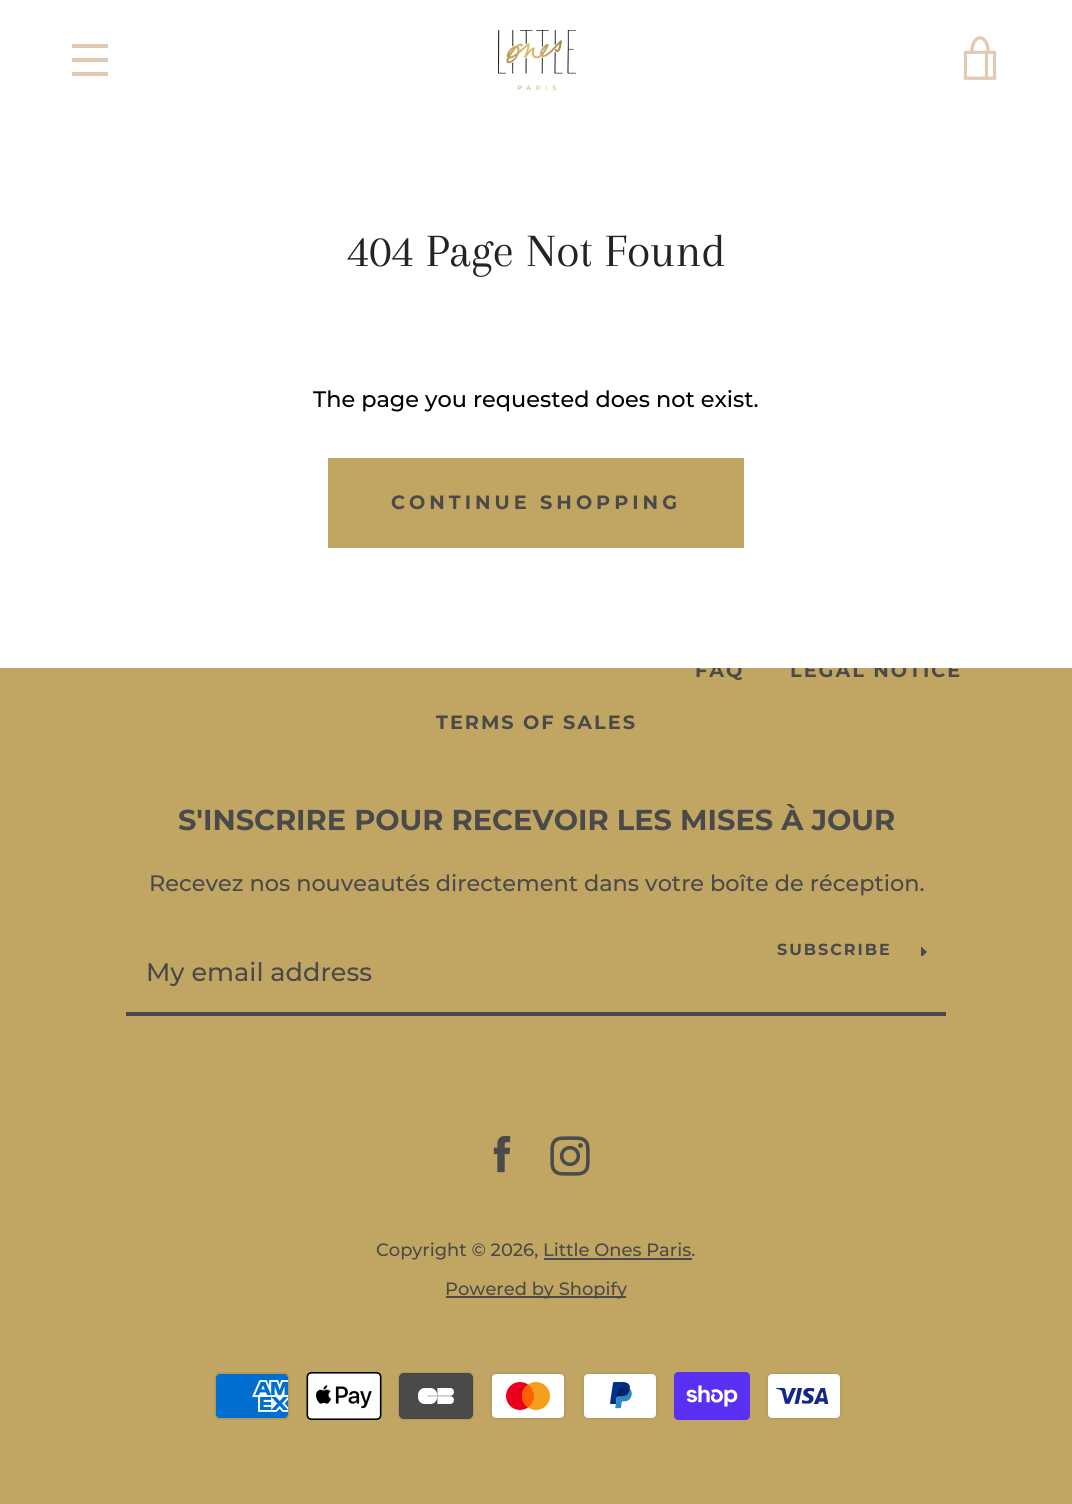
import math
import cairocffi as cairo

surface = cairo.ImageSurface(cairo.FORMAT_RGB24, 1072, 1504)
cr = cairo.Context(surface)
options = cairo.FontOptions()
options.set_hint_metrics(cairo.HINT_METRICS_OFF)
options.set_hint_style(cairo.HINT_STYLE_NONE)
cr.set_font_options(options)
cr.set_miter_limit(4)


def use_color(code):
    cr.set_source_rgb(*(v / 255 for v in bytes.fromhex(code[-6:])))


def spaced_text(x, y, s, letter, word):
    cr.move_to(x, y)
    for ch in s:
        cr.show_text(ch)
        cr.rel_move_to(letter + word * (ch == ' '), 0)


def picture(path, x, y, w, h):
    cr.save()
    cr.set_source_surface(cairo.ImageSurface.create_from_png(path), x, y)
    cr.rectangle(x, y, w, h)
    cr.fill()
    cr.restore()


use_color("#ffffff")
cr.paint()
use_color("#e1c9b4")
cr.rectangle(72, 44, 36, 4)
cr.fill()
cr.rectangle(72, 58, 36, 4)
cr.fill()
cr.rectangle(72, 72, 36, 4)
cr.fill()
picture("img1.png", 498, 30, 78, 60)
picture("img2.png", 963, 36, 34, 44)
use_color("#c1a663")
cr.rectangle(0, 668, 1072, 836)
cr.fill()
cr.select_font_face("Montserrat", cairo.FONT_SLANT_NORMAL, cairo.FONT_WEIGHT_BOLD)
cr.set_font_size(19.25)
use_color("#4a4a4a")
spaced_text(695, 677, "FAQ", 2, 0)
spaced_text(790, 677, "LEGAL NOTICE", 2, 0)
use_color("#ffffff")
cr.rectangle(696, 663, 263, 5)
cr.fill()
cr.select_font_face("Arapey")
cr.set_font_size(48)
use_color("#242424")
cr.move_to(347, 266)
cr.show_text("404 Page Not Found")
cr.select_font_face("Montserrat Medium")
cr.set_font_size(22.4)
use_color("#000000")
cr.move_to(313, 407)
cr.show_text("The page you requested does not exist.")
use_color("#c1a663")
cr.rectangle(328, 458, 416, 90)
cr.fill()
cr.select_font_face("Montserrat", cairo.FONT_SLANT_NORMAL, cairo.FONT_WEIGHT_BOLD)
cr.set_font_size(19.25)
use_color("#4a4a4a")
spaced_text(391, 509, "CONTINUE SHOPPING", 4, 0)
spaced_text(436, 729, "TERMS OF SALES", 2, 0)
cr.set_font_size(28.8)
cr.move_to(178, 830)
cr.show_text("S'INSCRIRE POUR RECEVOIR LES MISES À JOUR")
cr.select_font_face("Montserrat Medium")
cr.set_font_size(22.4)
cr.move_to(149, 891)
cr.show_text("Recevez nos nouveautés directement dans votre boîte de réception.")
cr.rectangle(126, 1012, 820, 4)
cr.fill()
cr.select_font_face("Montserrat", cairo.FONT_SLANT_NORMAL, cairo.FONT_WEIGHT_BOLD)
cr.set_font_size(16)
spaced_text(777, 955, "SUBSCRIBE", 2, 0)
cr.save()
cr.rectangle(892, 946, 40, 10)
cr.clip()
cr.new_path()
cr.move_to(927, 952)
cr.line_to(921, 957.5)
cr.line_to(921, 946.5)
cr.close_path()
cr.fill()
cr.restore()
cr.select_font_face("Montserrat Medium")
cr.set_font_size(25.5)
cr.move_to(146, 981)
cr.show_text("My email address")
picture("img3.png", 493, 1136, 18, 37)
picture("img4.png", 550, 1136, 40, 40)
cr.set_font_size(17.9)
cr.move_to(376, 1256)
cr.show_text("Copyright © 2026, Little Ones Paris.")
cr.rectangle(544, 1258, 148, 2)
cr.fill()
cr.rectangle(446, 1296, 180, 2)
cr.fill()
cr.move_to(445, 1295)
cr.show_text("Powered by Shopify")
picture("img5.png", 214, 1372, 76, 48)
picture("img6.png", 306, 1372, 76, 48)
picture("img7.png", 398, 1372, 76, 48)
picture("img8.png", 490, 1372, 76, 48)
picture("img9.png", 582, 1372, 76, 48)
picture("img10.png", 674, 1372, 76, 48)
picture("img11.png", 766, 1372, 76, 48)
surface.write_to_png("result.png")
